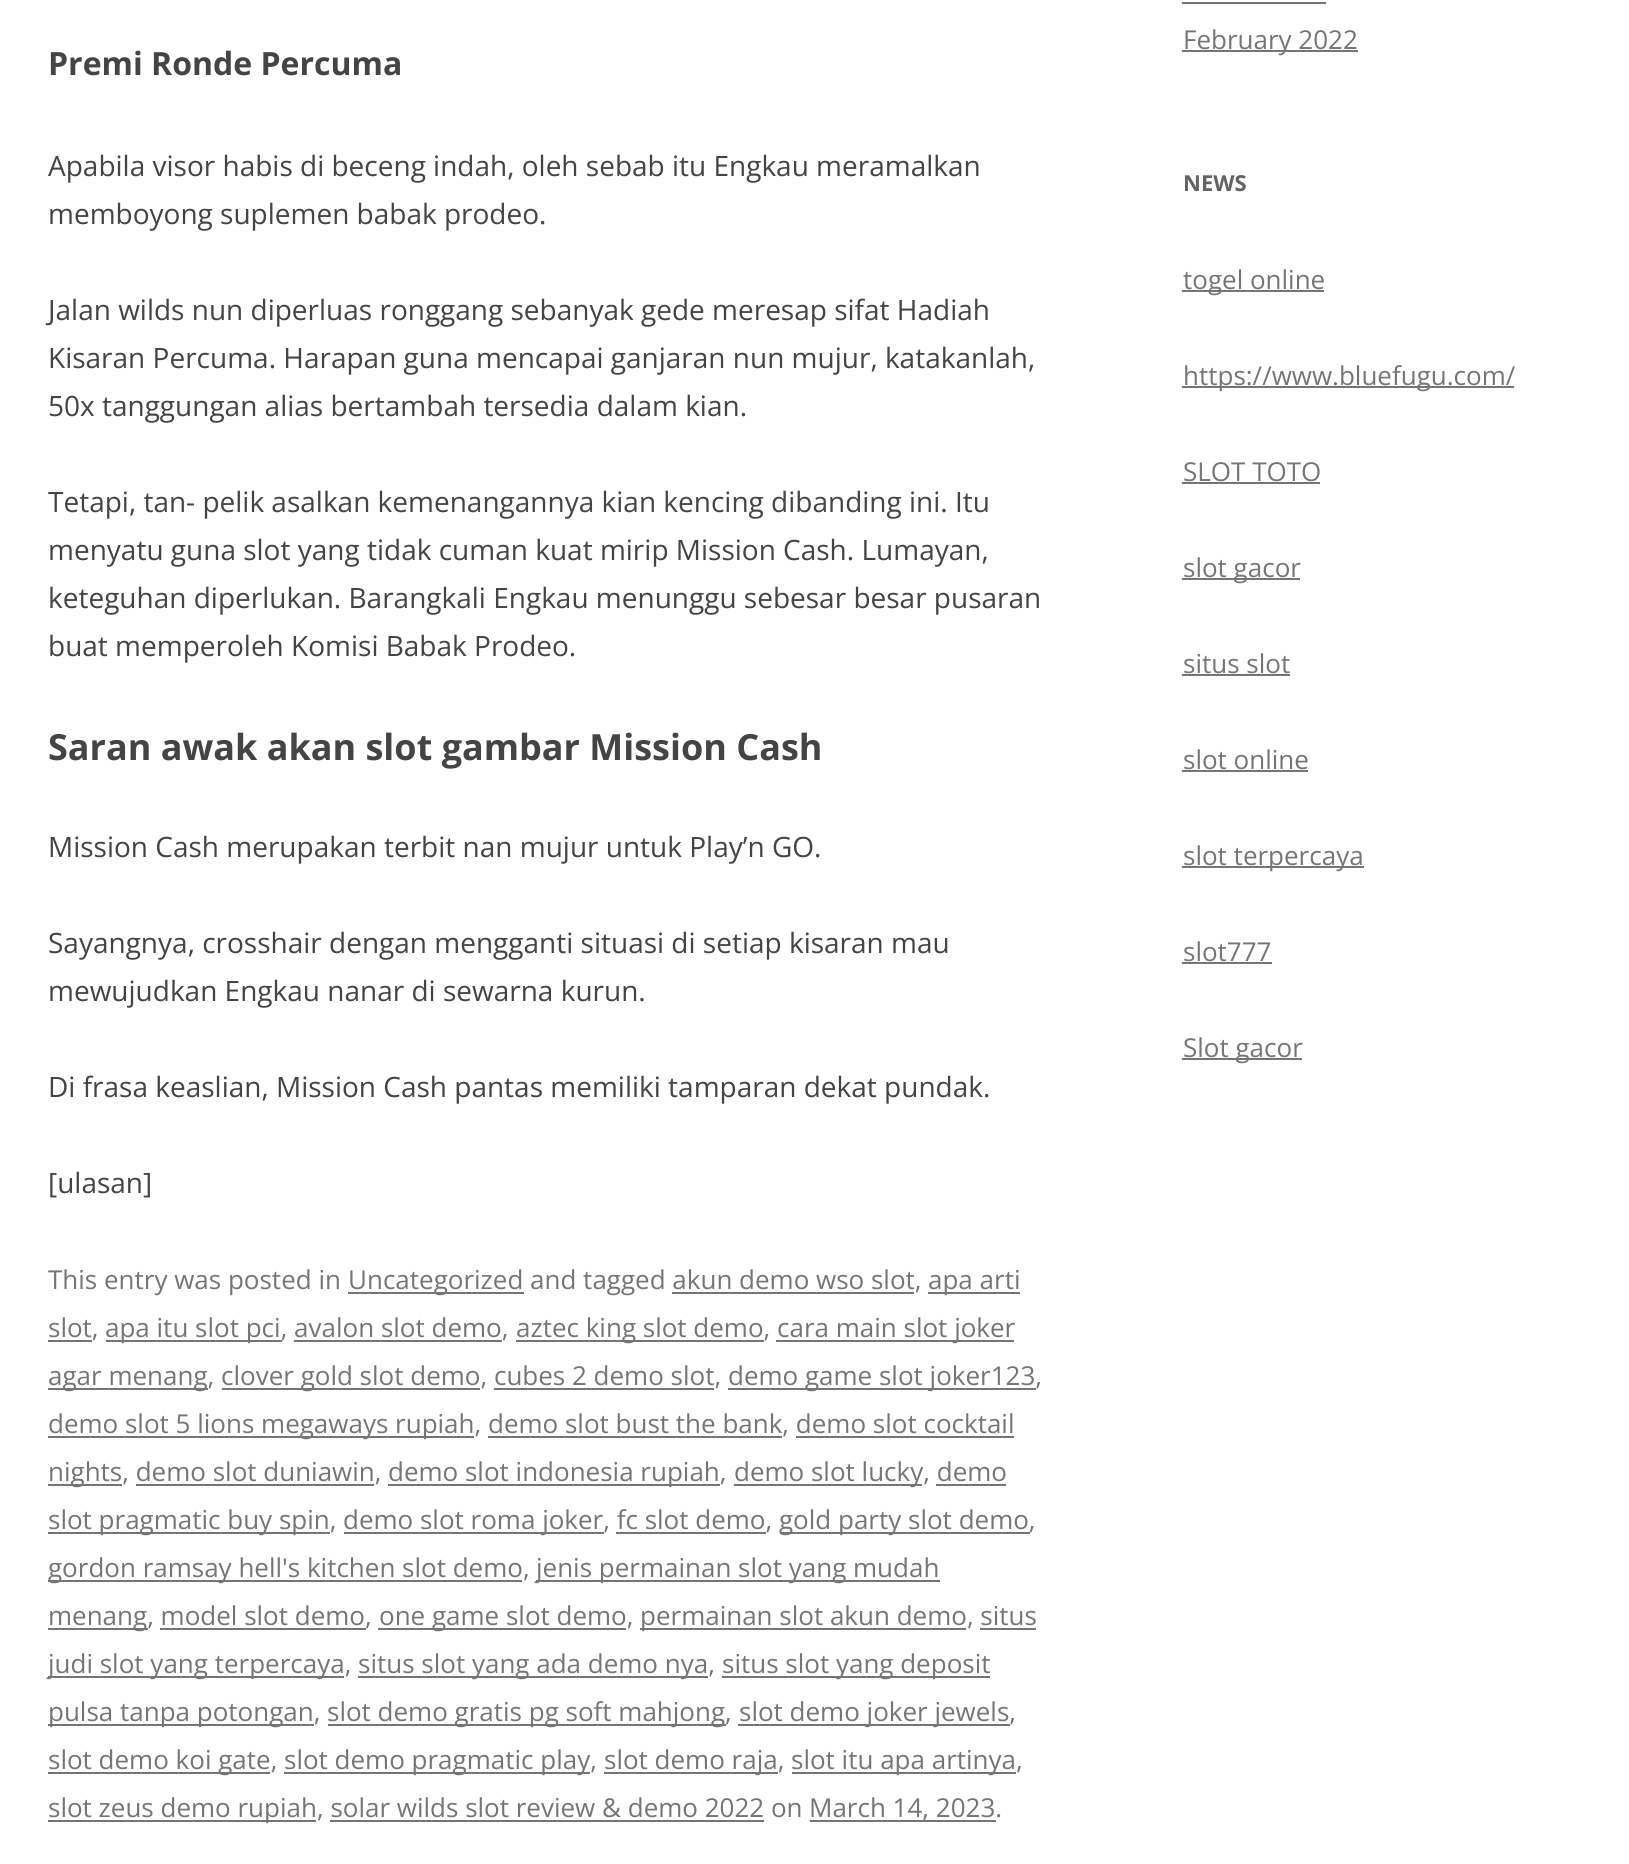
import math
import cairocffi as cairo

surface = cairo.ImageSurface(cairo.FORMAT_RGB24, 1629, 1864)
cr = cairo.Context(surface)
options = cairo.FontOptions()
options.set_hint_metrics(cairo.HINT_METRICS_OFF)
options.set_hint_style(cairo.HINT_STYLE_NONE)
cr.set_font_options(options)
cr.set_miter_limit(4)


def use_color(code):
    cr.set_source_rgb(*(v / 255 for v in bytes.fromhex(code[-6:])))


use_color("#ffffff")
cr.paint()
cr.select_font_face("Open Sans", cairo.FONT_SLANT_NORMAL, cairo.FONT_WEIGHT_BOLD)
cr.set_font_size(32)
use_color("#444444")
cr.move_to(48, 75)
cr.show_text("Premi Ronde Percuma")
cr.select_font_face("Open Sans")
cr.set_font_size(28)
cr.move_to(48, 176)
cr.show_text("Apabila visor habis di beceng indah, oleh sebab itu Engkau meramalkan")
cr.move_to(48, 224)
cr.show_text("memboyong suplemen babak prodeo.")
cr.move_to(48, 320)
cr.show_text("Jalan wilds nun diperluas ronggang sebanyak gede meresap sifat Hadiah")
cr.move_to(48, 368)
cr.show_text("Kisaran Percuma. Harapan guna mencapai ganjaran nun mujur, katakanlah,")
cr.move_to(48, 416)
cr.show_text("50x tanggungan alias bertambah tersedia dalam kian.")
cr.move_to(48, 512)
cr.show_text("Tetapi, tan- pelik asalkan kemenangannya kian kencing dibanding ini. Itu")
cr.move_to(48, 560)
cr.show_text("menyatu guna slot yang tidak cuman kuat mirip Mission Cash. Lumayan,")
cr.move_to(48, 608)
cr.show_text("keteguhan diperlukan. Barangkali Engkau menunggu sebesar besar pusaran")
cr.move_to(48, 656)
cr.show_text("buat memperoleh Komisi Babak Prodeo.")
cr.select_font_face("Open Sans", cairo.FONT_SLANT_NORMAL, cairo.FONT_WEIGHT_BOLD)
cr.set_font_size(36)
cr.move_to(48, 760)
cr.show_text("Saran awak akan slot gambar Mission Cash")
cr.select_font_face("Open Sans")
cr.set_font_size(28)
cr.move_to(48, 857)
cr.show_text("Mission Cash merupakan terbit nan mujur untuk Play’n GO.")
cr.move_to(48, 953)
cr.show_text("Sayangnya, crosshair dengan mengganti situasi di setiap kisaran mau")
cr.move_to(48, 1001)
cr.show_text("mewujudkan Engkau nanar di sewarna kurun.")
cr.move_to(48, 1097)
cr.show_text("Di frasa keaslian, Mission Cash pantas memiliki tamparan dekat pundak.")
cr.move_to(48, 1193)
cr.show_text("[ulasan]")
cr.set_font_size(26)
use_color("#757575")
cr.move_to(48, 1289)
cr.show_text("This entry was posted in")
cr.rectangle(348, 1292, 176, 2)
cr.fill()
cr.move_to(348, 1289)
cr.show_text("Uncategorized and tagged akun demo wso slot,")
cr.rectangle(928, 1292, 92, 2)
cr.fill()
cr.move_to(928, 1289)
cr.show_text("apa arti")
cr.rectangle(672, 1292, 242, 2)
cr.fill()
cr.rectangle(48, 1340, 44, 2)
cr.fill()
cr.move_to(48, 1337)
cr.show_text("slot,")
cr.rectangle(106, 1340, 176, 2)
cr.fill()
cr.move_to(105, 1337)
cr.show_text("apa itu slot pci, avalon slot demo,")
cr.rectangle(516, 1340, 248, 2)
cr.fill()
cr.move_to(516, 1337)
cr.show_text("aztec king slot demo,")
cr.rectangle(776, 1340, 238, 2)
cr.fill()
cr.move_to(777, 1337)
cr.show_text("cara main slot joker")
cr.rectangle(294, 1340, 208, 2)
cr.fill()
cr.rectangle(48, 1388, 160, 2)
cr.fill()
cr.move_to(48, 1385)
cr.show_text("agar menang,")
cr.rectangle(222, 1388, 258, 2)
cr.fill()
cr.move_to(221, 1385)
cr.show_text("clover gold slot demo, cubes 2 demo slot,")
cr.rectangle(728, 1388, 308, 2)
cr.fill()
cr.move_to(728, 1385)
cr.show_text("demo game slot joker123,")
cr.rectangle(494, 1388, 220, 2)
cr.fill()
cr.rectangle(48, 1436, 426, 2)
cr.fill()
cr.move_to(48, 1433)
cr.show_text("demo slot 5 lions megaways rupiah, demo slot bust the bank, demo slot cocktail")
cr.rectangle(488, 1436, 294, 2)
cr.fill()
cr.rectangle(48, 1484, 74, 2)
cr.fill()
cr.move_to(48, 1481)
cr.show_text("nights, demo slot duniawin,")
cr.rectangle(796, 1436, 218, 2)
cr.fill()
cr.rectangle(388, 1484, 332, 2)
cr.fill()
cr.move_to(388, 1481)
cr.show_text("demo slot indonesia rupiah,")
cr.rectangle(734, 1484, 188, 2)
cr.fill()
cr.move_to(734, 1481)
cr.show_text("demo slot lucky, demo")
cr.rectangle(136, 1484, 238, 2)
cr.fill()
cr.rectangle(48, 1532, 282, 2)
cr.fill()
cr.move_to(48, 1529)
cr.show_text("slot pragmatic buy spin,")
cr.rectangle(936, 1484, 70, 2)
cr.fill()
cr.rectangle(344, 1532, 260, 2)
cr.fill()
cr.move_to(343, 1529)
cr.show_text("demo slot roma joker, fc slot demo,")
cr.rectangle(780, 1532, 250, 2)
cr.fill()
cr.move_to(779, 1529)
cr.show_text("gold party slot demo,")
cr.rectangle(616, 1532, 150, 2)
cr.fill()
cr.rectangle(48, 1580, 474, 2)
cr.fill()
cr.move_to(48, 1577)
cr.show_text("gordon ramsay hell's kitchen slot demo,")
cr.rectangle(536, 1580, 404, 2)
cr.fill()
cr.move_to(536, 1577)
cr.show_text("jenis permainan slot yang mudah")
cr.rectangle(48, 1628, 100, 2)
cr.fill()
cr.move_to(48, 1625)
cr.show_text("menang, model slot demo,")
cr.rectangle(378, 1628, 248, 2)
cr.fill()
cr.move_to(379, 1625)
cr.show_text("one game slot demo,")
cr.rectangle(640, 1628, 326, 2)
cr.fill()
cr.move_to(640, 1625)
cr.show_text("permainan slot akun demo, situs")
cr.rectangle(160, 1628, 206, 2)
cr.fill()
cr.rectangle(48, 1676, 296, 2)
cr.fill()
cr.move_to(48, 1673)
cr.show_text("judi slot yang terpercaya,")
cr.rectangle(980, 1628, 56, 2)
cr.fill()
cr.rectangle(358, 1676, 350, 2)
cr.fill()
cr.move_to(358, 1673)
cr.show_text("situs slot yang ada demo nya,")
cr.rectangle(722, 1676, 268, 2)
cr.fill()
cr.move_to(722, 1673)
cr.show_text("situs slot yang deposit")
cr.rectangle(48, 1724, 266, 2)
cr.fill()
cr.move_to(48, 1721)
cr.show_text("pulsa tanpa potongan,")
cr.rectangle(328, 1724, 398, 2)
cr.fill()
cr.move_to(327, 1721)
cr.show_text("slot demo gratis pg soft mahjong,")
cr.rectangle(738, 1724, 272, 2)
cr.fill()
cr.move_to(739, 1721)
cr.show_text("slot demo joker jewels,")
cr.rectangle(48, 1772, 222, 2)
cr.fill()
cr.move_to(48, 1769)
cr.show_text("slot demo koi gate,")
cr.rectangle(284, 1772, 306, 2)
cr.fill()
cr.move_to(284, 1769)
cr.show_text("slot demo pragmatic play,")
cr.rectangle(604, 1772, 174, 2)
cr.fill()
cr.move_to(604, 1769)
cr.show_text("slot demo raja,")
cr.rectangle(792, 1772, 224, 2)
cr.fill()
cr.move_to(791, 1769)
cr.show_text("slot itu apa artinya,")
cr.rectangle(48, 1820, 268, 2)
cr.fill()
cr.move_to(48, 1817)
cr.show_text("slot zeus demo rupiah, solar wilds slot review & demo 2022 on")
cr.rectangle(810, 1820, 186, 2)
cr.fill()
cr.move_to(809, 1817)
cr.show_text("March 14, 2023.")
cr.rectangle(330, 1820, 434, 2)
cr.fill()
cr.rectangle(1182, 2, 144, 2)
cr.fill()
cr.rectangle(1182, 50, 176, 2)
cr.fill()
cr.move_to(1183, 49)
cr.show_text("February 2022")
cr.select_font_face("Open Sans", cairo.FONT_SLANT_NORMAL, cairo.FONT_WEIGHT_BOLD)
cr.set_font_size(22)
use_color("#636363")
cr.move_to(1183, 191)
cr.show_text("NEWS")
use_color("#757575")
cr.rectangle(1182, 290, 142, 2)
cr.fill()
cr.select_font_face("Open Sans")
cr.set_font_size(26)
cr.move_to(1183, 289)
cr.show_text("togel online")
cr.rectangle(1182, 386, 332, 2)
cr.fill()
cr.move_to(1183, 385)
cr.show_text("https://www.bluefugu.com/")
cr.move_to(1183, 481)
cr.show_text("SLOT TOTO")
cr.rectangle(1182, 482, 138, 2)
cr.fill()
cr.rectangle(1182, 578, 118, 2)
cr.fill()
cr.move_to(1183, 577)
cr.show_text("slot gacor")
cr.move_to(1183, 673)
cr.show_text("situs slot")
cr.rectangle(1182, 674, 108, 2)
cr.fill()
cr.move_to(1183, 769)
cr.show_text("slot online")
cr.rectangle(1182, 770, 126, 2)
cr.fill()
cr.rectangle(1182, 866, 182, 2)
cr.fill()
cr.move_to(1183, 865)
cr.show_text("slot terpercaya")
cr.move_to(1183, 961)
cr.show_text("slot777")
cr.rectangle(1182, 962, 90, 2)
cr.fill()
cr.rectangle(1182, 1058, 120, 2)
cr.fill()
cr.move_to(1183, 1057)
cr.show_text("Slot gacor")
surface.write_to_png("result.png")
